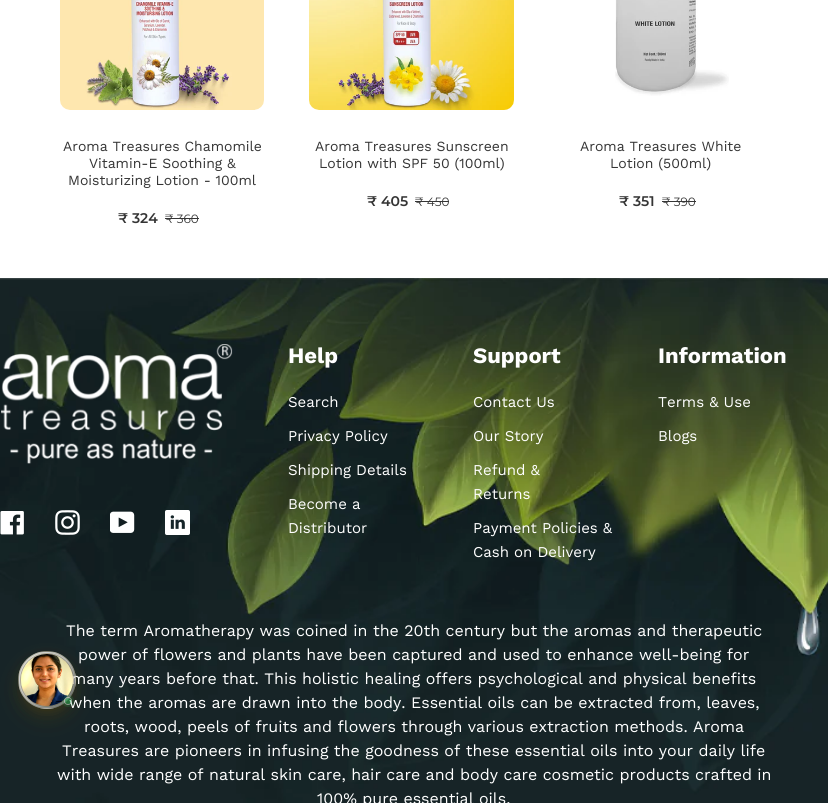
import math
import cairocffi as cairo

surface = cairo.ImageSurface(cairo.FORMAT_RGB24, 828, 803)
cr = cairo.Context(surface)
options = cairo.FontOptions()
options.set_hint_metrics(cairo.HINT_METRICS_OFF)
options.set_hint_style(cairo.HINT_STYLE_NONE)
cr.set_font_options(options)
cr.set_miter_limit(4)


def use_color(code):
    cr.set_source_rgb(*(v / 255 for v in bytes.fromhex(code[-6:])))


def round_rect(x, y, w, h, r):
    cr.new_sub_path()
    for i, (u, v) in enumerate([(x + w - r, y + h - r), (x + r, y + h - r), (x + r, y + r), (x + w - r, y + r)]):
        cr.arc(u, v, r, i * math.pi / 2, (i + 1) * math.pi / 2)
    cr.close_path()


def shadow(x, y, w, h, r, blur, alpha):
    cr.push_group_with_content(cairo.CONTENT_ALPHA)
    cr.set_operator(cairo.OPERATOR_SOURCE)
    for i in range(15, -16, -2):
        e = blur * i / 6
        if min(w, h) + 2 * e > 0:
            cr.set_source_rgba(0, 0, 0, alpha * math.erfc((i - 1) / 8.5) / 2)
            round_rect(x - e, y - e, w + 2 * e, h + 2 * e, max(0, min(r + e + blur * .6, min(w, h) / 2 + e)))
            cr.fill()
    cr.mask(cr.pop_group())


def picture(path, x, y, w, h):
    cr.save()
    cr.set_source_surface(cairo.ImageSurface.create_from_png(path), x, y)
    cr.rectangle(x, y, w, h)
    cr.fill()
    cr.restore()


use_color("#ffffff")
cr.paint()
picture("img5.png", 0, 278, 828, 525)
cr.save()
cr.set_fill_rule(cairo.FILL_RULE_EVEN_ODD)
cr.new_path()
cr.move_to(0, 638)
cr.line_to(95, 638)
cr.line_to(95, 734)
cr.line_to(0, 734)
cr.close_path()
cr.move_to(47, 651)
cr.curve_to(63, 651, 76, 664, 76, 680)
cr.curve_to(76, 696, 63, 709, 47, 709)
cr.curve_to(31, 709, 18, 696, 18, 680)
cr.curve_to(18, 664, 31, 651, 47, 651)
cr.close_path()
cr.clip()
use_color("#614805")
shadow(23, 662, 48, 48, 24, 7.5, 0.44)
cr.restore()
cr.save()
cr.set_fill_rule(cairo.FILL_RULE_EVEN_ODD)
cr.new_path()
cr.move_to(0, 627)
cr.line_to(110, 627)
cr.line_to(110, 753)
cr.line_to(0, 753)
cr.close_path()
cr.move_to(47, 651)
cr.curve_to(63, 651, 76, 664, 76, 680)
cr.curve_to(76, 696, 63, 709, 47, 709)
cr.curve_to(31, 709, 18, 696, 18, 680)
cr.curve_to(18, 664, 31, 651, 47, 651)
cr.close_path()
cr.clip()
use_color("#614805")
shadow(23, 666, 48, 48, 24, 12.5, 0.25)
cr.restore()
cr.save()
round_rect(18, 651, 58, 58, 29)
cr.clip()
gradient = cairo.LinearGradient(19, 596, 75, 652)
gradient.add_color_stop_rgba(0, 0.91, 0.914, 0.914, 1)
gradient.add_color_stop_rgba(0.5, 0.729, 0.741, 0.745, 1)
gradient.add_color_stop_rgba(1, 0.365, 0.4, 0.408, 1)
cr.set_source(gradient)
cr.rectangle(39, 651, 16, 1)
cr.fill()
gradient = cairo.LinearGradient(-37, 652, 19, 708)
gradient.add_color_stop_rgba(0, 1, 1, 1, 0.9)
gradient.add_color_stop_rgba(0.5, 1, 1, 1, 0.7)
gradient.add_color_stop_rgba(1, 1, 1, 1, 0.3)
cr.set_source(gradient)
cr.rectangle(18, 673, 1, 14)
cr.fill()
cr.restore()
cr.select_font_face("Work Sans")
cr.set_font_size(16)
use_color("#ffffff")
cr.move_to(71, 684)
cr.show_text("many years before that. This holistic healing offers psychological and physical benefits")
cr.move_to(69, 708)
cr.show_text("when the aromas are drawn into the body. Essential oils can be extracted from, leaves,")
cr.save()
round_rect(18, 651, 58, 58, 29)
cr.clip()
gradient = cairo.LinearGradient(19, 652, 75, 708)
gradient.add_color_stop_rgba(0, 1, 1, 1, 0.9)
gradient.add_color_stop_rgba(0.5, 1, 1, 1, 0.7)
gradient.add_color_stop_rgba(1, 1, 1, 1, 0.3)
cr.set_source(gradient)
cr.rectangle(19, 652, 56, 56)
cr.fill()
gradient = cairo.LinearGradient(75, 652, 131, 708)
gradient.add_color_stop_rgba(0, 1, 1, 1, 0.9)
gradient.add_color_stop_rgba(0.5, 1, 1, 1, 0.7)
gradient.add_color_stop_rgba(1, 1, 1, 1, 0.3)
cr.set_source(gradient)
cr.rectangle(75, 673, 1, 14)
cr.fill()
gradient = cairo.LinearGradient(19, 708, 75, 764)
gradient.add_color_stop_rgba(0, 1, 1, 1, 0.9)
gradient.add_color_stop_rgba(0.5, 1, 1, 1, 0.7)
gradient.add_color_stop_rgba(1, 1, 1, 1, 0.3)
cr.set_source(gradient)
cr.rectangle(40, 708, 14, 1)
cr.fill()
cr.restore()
cr.arc(47, 680, 28.5, 0, 2 * math.pi)
cr.set_source_rgba(0.38, 0.282, 0.02, 0.25)
cr.set_line_width(1)
cr.stroke()
cr.arc(47, 680, 26.5, 0, 2 * math.pi)
cr.set_source_rgba(0.408, 0.29, 0, 0.31)
cr.stroke()
picture("img1.png", 21, 654, 52, 52)
cr.arc(68, 701, 4.5, 0, 2 * math.pi)
cr.set_source_rgba(0.133, 0.773, 0.369, 0.14)
cr.set_line_width(3)
cr.stroke()
cr.arc(68, 701, 3.5, 0, 2 * math.pi)
cr.set_source_rgba(1, 1, 1, 0.45)
cr.set_line_width(1)
cr.stroke()
cr.set_source_rgba(0.133, 0.773, 0.369, 0.45)
cr.arc(68, 701, 3, 0, 2 * math.pi)
cr.fill()
picture("img2.png", 60, 0, 204, 110)
cr.set_font_size(14)
use_color("#353535")
cr.move_to(63, 151)
cr.show_text("Aroma Treasures Chamomile")
cr.move_to(89, 168)
cr.show_text("Vitamin-E Soothing &")
cr.move_to(68, 185)
cr.show_text("Moisturizing Lotion - 100ml")
cr.select_font_face("Montserrat SemiBold")
cr.move_to(118, 223)
cr.show_text("₹ 324")
cr.select_font_face("Montserrat")
cr.set_font_size(12)
cr.move_to(165, 223)
cr.show_text("₹ 360")
cr.rectangle(165, 218, 34, 1)
cr.fill()
picture("img3.png", 309, 0, 205, 110)
cr.select_font_face("Work Sans")
cr.set_font_size(14)
cr.move_to(315, 151)
cr.show_text("Aroma Treasures Sunscreen")
cr.move_to(319, 168)
cr.show_text("Lotion with SPF 50 (100ml)")
cr.select_font_face("Montserrat SemiBold")
cr.move_to(367, 206)
cr.show_text("₹ 405")
cr.select_font_face("Montserrat")
cr.set_font_size(12)
cr.move_to(415, 206)
cr.show_text("₹ 450")
cr.rectangle(415, 201, 34, 1)
cr.fill()
picture("img4.png", 615, 0, 114, 96)
cr.select_font_face("Work Sans")
cr.set_font_size(14)
cr.move_to(580, 151)
cr.show_text("Aroma Treasures White")
cr.move_to(610, 168)
cr.show_text("Lotion (500ml)")
cr.select_font_face("Montserrat SemiBold")
cr.move_to(619, 206)
cr.show_text("₹ 351")
cr.select_font_face("Montserrat")
cr.set_font_size(12)
cr.move_to(662, 206)
cr.show_text("₹ 390")
cr.rectangle(662, 201, 34, 1)
cr.fill()
picture("img6.png", 1, 344, 232, 120)
picture("img7.png", 0, 511, 24, 24)
picture("img8.png", 55, 510, 25, 25)
picture("img9.png", 110, 511, 25, 22)
picture("img10.png", 165, 510, 25, 25)
cr.select_font_face("Work Sans", cairo.FONT_SLANT_NORMAL, cairo.FONT_WEIGHT_BOLD)
cr.set_font_size(22)
use_color("#ffffff")
cr.move_to(288, 363)
cr.show_text("Help")
cr.select_font_face("Work Sans")
cr.set_font_size(15)
cr.move_to(288, 407)
cr.show_text("Search")
cr.move_to(288, 441)
cr.show_text("Privacy Policy")
cr.move_to(288, 475)
cr.show_text("Shipping Details")
cr.move_to(288, 509)
cr.show_text("Become a")
cr.move_to(288, 533)
cr.show_text("Distributor")
cr.select_font_face("Work Sans", cairo.FONT_SLANT_NORMAL, cairo.FONT_WEIGHT_BOLD)
cr.set_font_size(22)
cr.move_to(473, 363)
cr.show_text("Support")
cr.select_font_face("Work Sans")
cr.set_font_size(15)
cr.move_to(473, 407)
cr.show_text("Contact Us")
cr.move_to(473, 441)
cr.show_text("Our Story")
cr.move_to(473, 475)
cr.show_text("Refund &")
cr.move_to(473, 499)
cr.show_text("Returns")
cr.move_to(473, 533)
cr.show_text("Payment Policies &")
cr.move_to(473, 557)
cr.show_text("Cash on Delivery")
cr.select_font_face("Work Sans", cairo.FONT_SLANT_NORMAL, cairo.FONT_WEIGHT_BOLD)
cr.set_font_size(22)
cr.move_to(658, 363)
cr.show_text("Information")
cr.select_font_face("Work Sans")
cr.set_font_size(15)
cr.move_to(658, 407)
cr.show_text("Terms & Use")
cr.move_to(658, 441)
cr.show_text("Blogs")
cr.set_font_size(16)
cr.move_to(66, 636)
cr.show_text("The term Aromatherapy was coined in the 20th century but the aromas and therapeutic")
cr.move_to(78, 660)
cr.show_text("power of flowers and plants have been captured and used to enhance well-being for")
cr.move_to(84, 732)
cr.show_text("roots, wood, peels of fruits and flowers through various extraction methods. Aroma")
cr.move_to(62, 756)
cr.show_text("Treasures are pioneers in infusing the goodness of these essential oils into your daily life")
cr.move_to(57, 780)
cr.show_text("with wide range of natural skin care, hair care and body care cosmetic products crafted in")
cr.move_to(317, 804)
cr.show_text("100% pure essential oils.")
surface.write_to_png("result.png")
